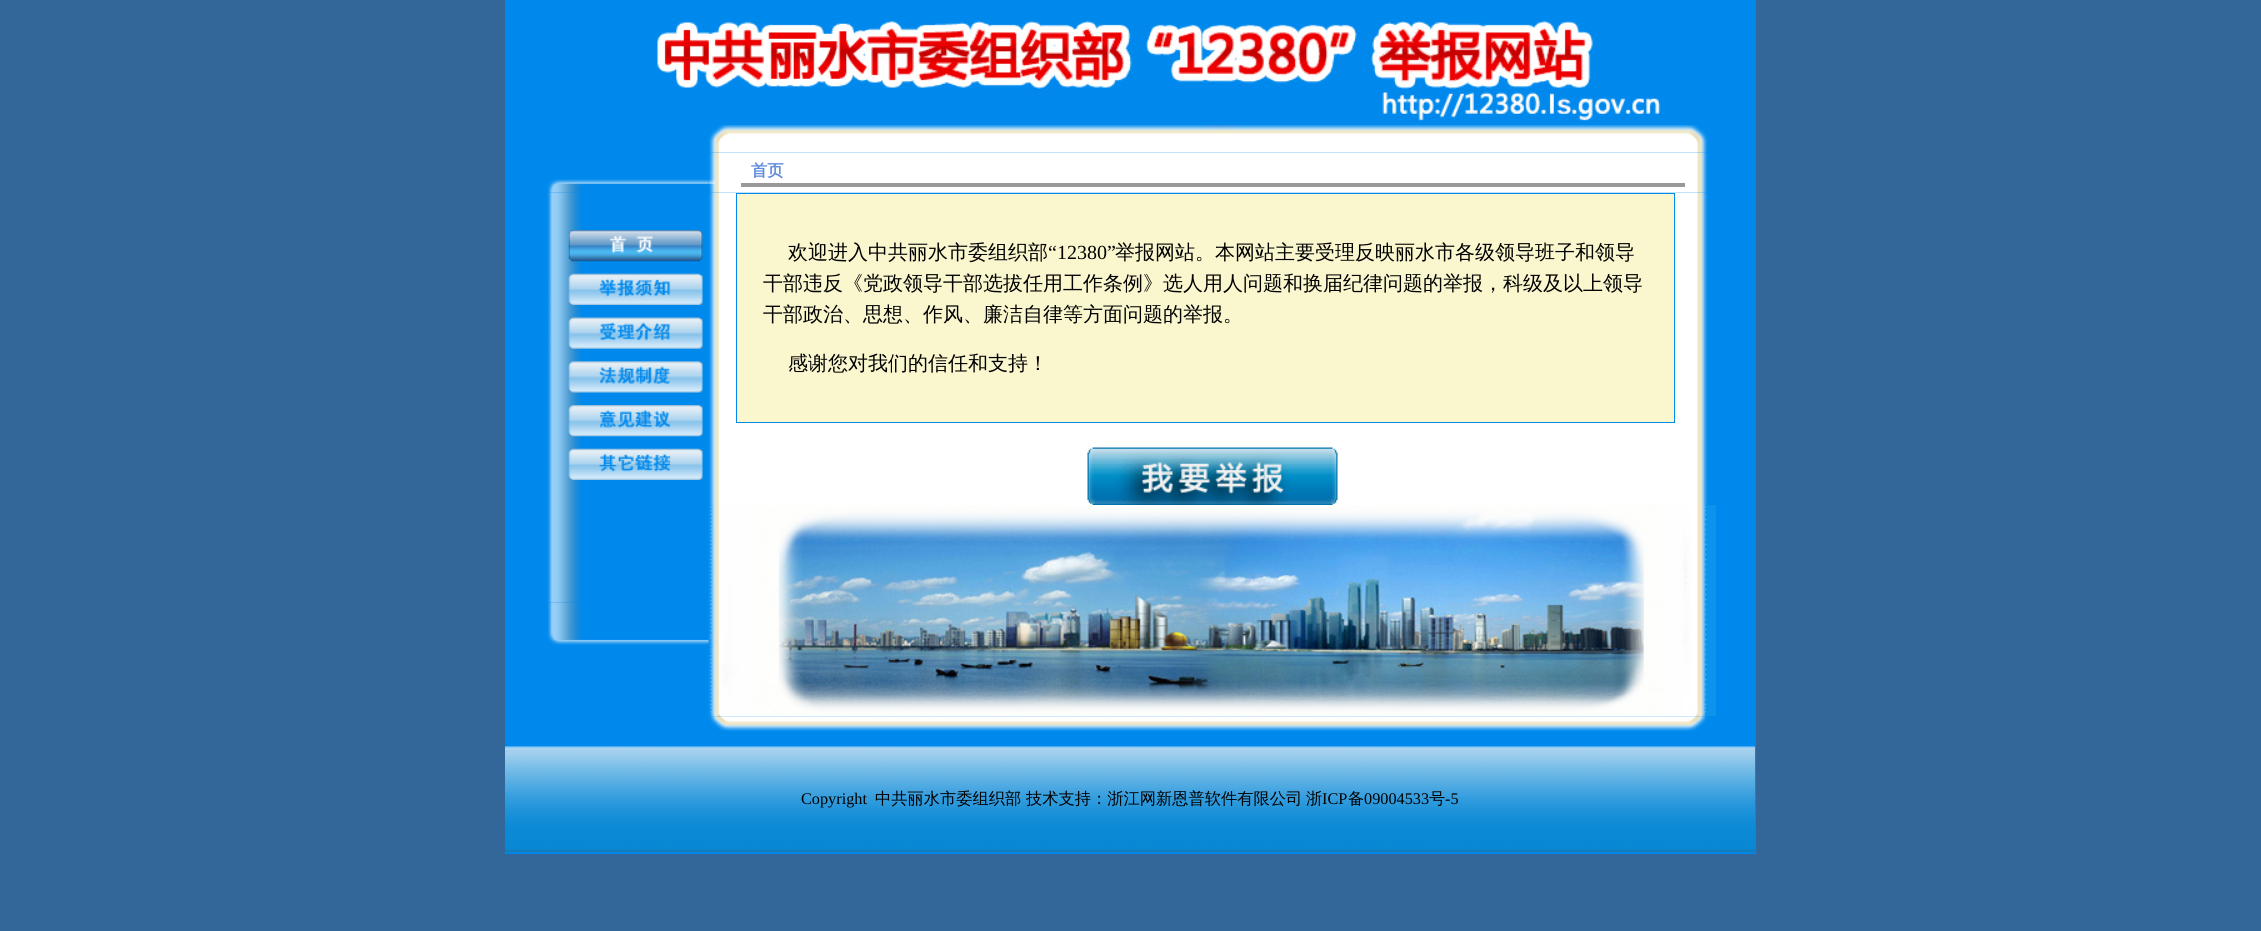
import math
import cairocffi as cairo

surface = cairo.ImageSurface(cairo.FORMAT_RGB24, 2261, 931)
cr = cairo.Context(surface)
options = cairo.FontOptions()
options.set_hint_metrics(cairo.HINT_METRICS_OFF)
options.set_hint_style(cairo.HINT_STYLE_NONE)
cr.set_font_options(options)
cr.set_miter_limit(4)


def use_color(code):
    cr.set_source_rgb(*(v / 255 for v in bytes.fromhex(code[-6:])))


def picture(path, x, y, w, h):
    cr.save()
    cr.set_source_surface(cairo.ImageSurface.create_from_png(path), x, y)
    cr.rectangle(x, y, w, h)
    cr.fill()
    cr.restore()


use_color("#336699")
cr.paint()
use_color("#0089ed")
cr.rectangle(505, 0, 1251, 854)
cr.fill()
picture("img1.png", 657, 21, 1004, 100)
picture("img3.png", 708, 152, 1000, 41)
picture("img2.png", 709, 125, 999, 28)
use_color("#999999")
cr.rectangle(741, 183, 944, 4)
cr.fill()
cr.select_font_face("WenQuanYi Zen Hei", cairo.FONT_SLANT_NORMAL, cairo.FONT_WEIGHT_BOLD)
cr.set_font_size(16.25)
use_color("#618bdd")
cr.move_to(751, 176)
cr.show_text("首页")
picture("img5.png", 547, 192, 35, 411)
picture("img12.png", 708, 192, 1000, 313)
picture("img4.png", 547, 179, 162, 14)
picture("img6.png", 568, 230, 135, 32)
picture("img7.png", 568, 273, 135, 32)
picture("img8.png", 568, 317, 135, 32)
picture("img9.png", 568, 361, 135, 32)
picture("img10.png", 568, 405, 135, 32)
picture("img11.png", 568, 448, 135, 32)
use_color("#faf7cf")
cr.rectangle(736.5, 193.5, 938, 229)
cr.fill_preserve()
use_color("#0089ed")
cr.set_line_width(1)
cr.stroke()
cr.select_font_face("WenQuanYi Zen Hei Medium")
cr.set_font_size(20)
use_color("#000000")
cr.move_to(788, 259)
cr.show_text("欢迎进入中共丽水市委组织部")
cr.select_font_face("Liberation Serif")
cr.move_to(1048, 259)
cr.show_text("“12380”")
cr.select_font_face("WenQuanYi Zen Hei Medium")
cr.move_to(1115, 259)
cr.show_text("举报网站。本网站主要受理反映丽水市各级领导班子和领导")
cr.move_to(763, 290)
cr.show_text("干部违反《党政领导干部选拔任用工作条例》选人用人问题和换届纪律问题的举报，科级及以上领导")
cr.move_to(763, 321)
cr.show_text("干部政治、思想、作风、廉洁自律等方面问题的举报。")
cr.move_to(788, 370)
cr.show_text("感谢您对我们的信任和支持！")
picture("img13.png", 1087, 447, 251, 58)
picture("img14.png", 547, 602, 162, 43)
picture("img15.png", 708, 505, 1008, 212)
picture("img16.png", 709, 716, 998, 15)
picture("img17.png", 505, 746, 1250, 107)
cr.select_font_face("Liberation Serif")
cr.set_font_size(16.25)
cr.move_to(801, 804)
cr.show_text("Copyright")
cr.select_font_face("WenQuanYi Zen Hei Medium")
cr.move_to(875, 804)
cr.show_text("中共丽水市委组织部")
cr.move_to(1026, 804)
cr.show_text("技术支持：浙江网新恩普软件有限公司")
cr.move_to(1306, 804)
cr.show_text("浙")
cr.select_font_face("Liberation Serif")
cr.move_to(1322, 804)
cr.show_text("ICP")
cr.select_font_face("WenQuanYi Zen Hei Medium")
cr.move_to(1348, 804)
cr.show_text("备")
cr.select_font_face("Liberation Serif")
cr.move_to(1364, 804)
cr.show_text("09004533")
cr.select_font_face("WenQuanYi Zen Hei Medium")
cr.move_to(1429, 804)
cr.show_text("号")
cr.select_font_face("Liberation Serif")
cr.move_to(1445, 804)
cr.show_text("-5")
surface.write_to_png("result.png")
